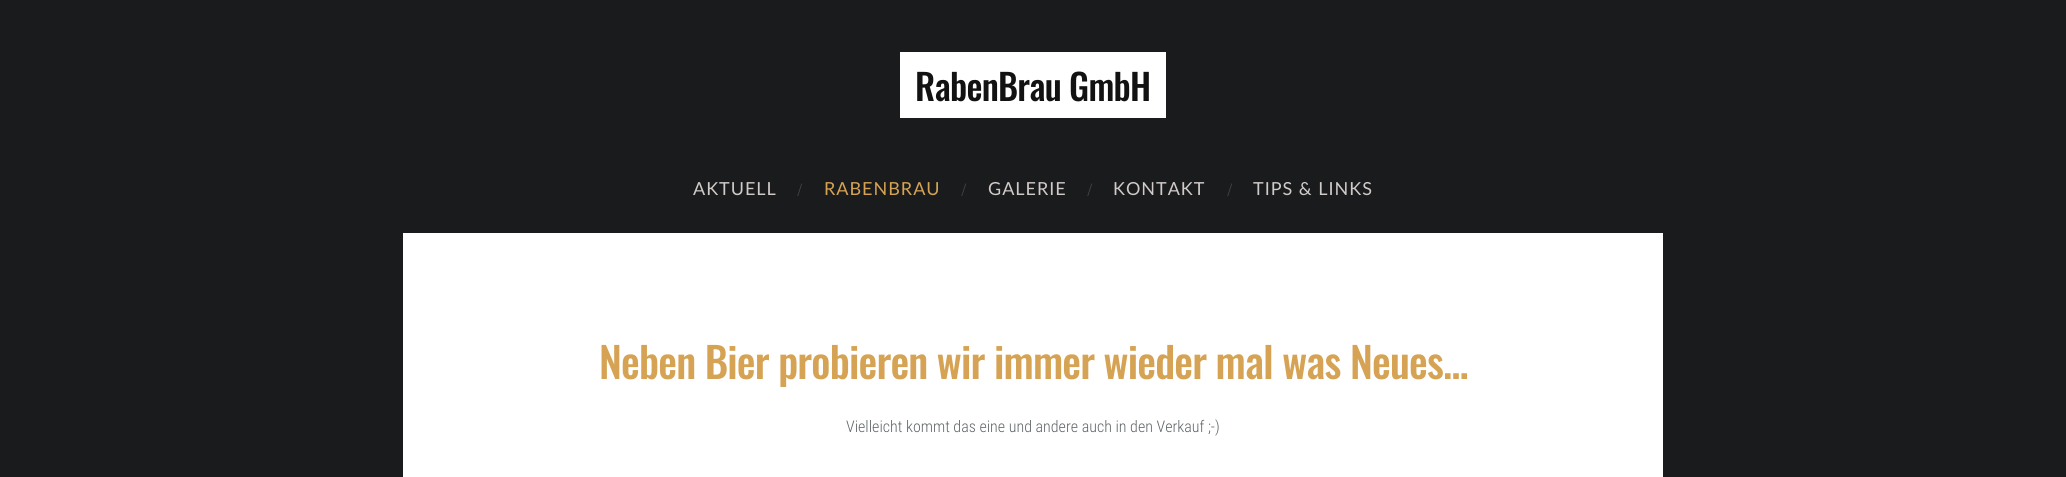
import math
import cairocffi as cairo

surface = cairo.ImageSurface(cairo.FORMAT_RGB24, 2066, 477)
cr = cairo.Context(surface)
options = cairo.FontOptions()
options.set_hint_metrics(cairo.HINT_METRICS_OFF)
options.set_hint_style(cairo.HINT_STYLE_NONE)
cr.set_font_options(options)
cr.set_miter_limit(4)


def use_color(code):
    cr.set_source_rgb(*(v / 255 for v in bytes.fromhex(code[-6:])))


def spaced_text(x, y, s, letter, word):
    cr.move_to(x, y)
    for ch in s:
        cr.show_text(ch)
        cr.rel_move_to(letter + word * (ch == ' '), 0)


use_color("#1a1b1d")
cr.paint()
use_color("#ffffff")
cr.rectangle(900, 52, 266, 66)
cr.fill()
cr.select_font_face("Oswald Medium")
cr.set_font_size(36)
use_color("#121212")
spaced_text(915, 101, "RabenBrau GmbH", -0.75, 0)
cr.select_font_face("Lato")
cr.set_font_size(18)
use_color("#d0cac8")
spaced_text(693, 195, "AKTUELL", 1, 0)
cr.select_font_face("Roboto Condensed Light")
cr.set_font_size(16)
use_color("#48494a")
cr.move_to(797, 195)
cr.show_text("/")
cr.select_font_face("Lato")
cr.set_font_size(18)
use_color("#d5a353")
spaced_text(824, 195, "RABENBRAU", 1, 0)
cr.select_font_face("Roboto Condensed Light")
cr.set_font_size(16)
use_color("#48494a")
cr.move_to(961, 195)
cr.show_text("/")
cr.select_font_face("Lato")
cr.set_font_size(18)
use_color("#d0cac8")
spaced_text(988, 195, "GALERIE", 1, 0)
cr.select_font_face("Roboto Condensed Light")
cr.set_font_size(16)
use_color("#48494a")
cr.move_to(1087, 195)
cr.show_text("/")
cr.select_font_face("Lato")
cr.set_font_size(18)
use_color("#d0cac8")
spaced_text(1113, 195, "KONTAKT", 1, 0)
cr.select_font_face("Roboto Condensed Light")
cr.set_font_size(16)
use_color("#48494a")
cr.move_to(1227, 195)
cr.show_text("/")
cr.select_font_face("Lato")
cr.set_font_size(18)
use_color("#d0cac8")
spaced_text(1253, 195, "TIPS & LINKS", 1, 0)
use_color("#ffffff")
cr.rectangle(403, 233, 1260, 244)
cr.fill()
cr.select_font_face("Oswald Medium")
cr.set_font_size(42.1)
use_color("#d5a353")
spaced_text(599, 379, "Neben Bier probieren wir immer wieder mal was Neues...", -0.85, 0)
cr.select_font_face("Roboto Condensed Light")
cr.set_font_size(16)
use_color("#5e6568")
cr.move_to(846, 432)
cr.show_text("Vielleicht kommt das eine und andere auch in den Verkauf ;-)")
surface.write_to_png("result.png")
